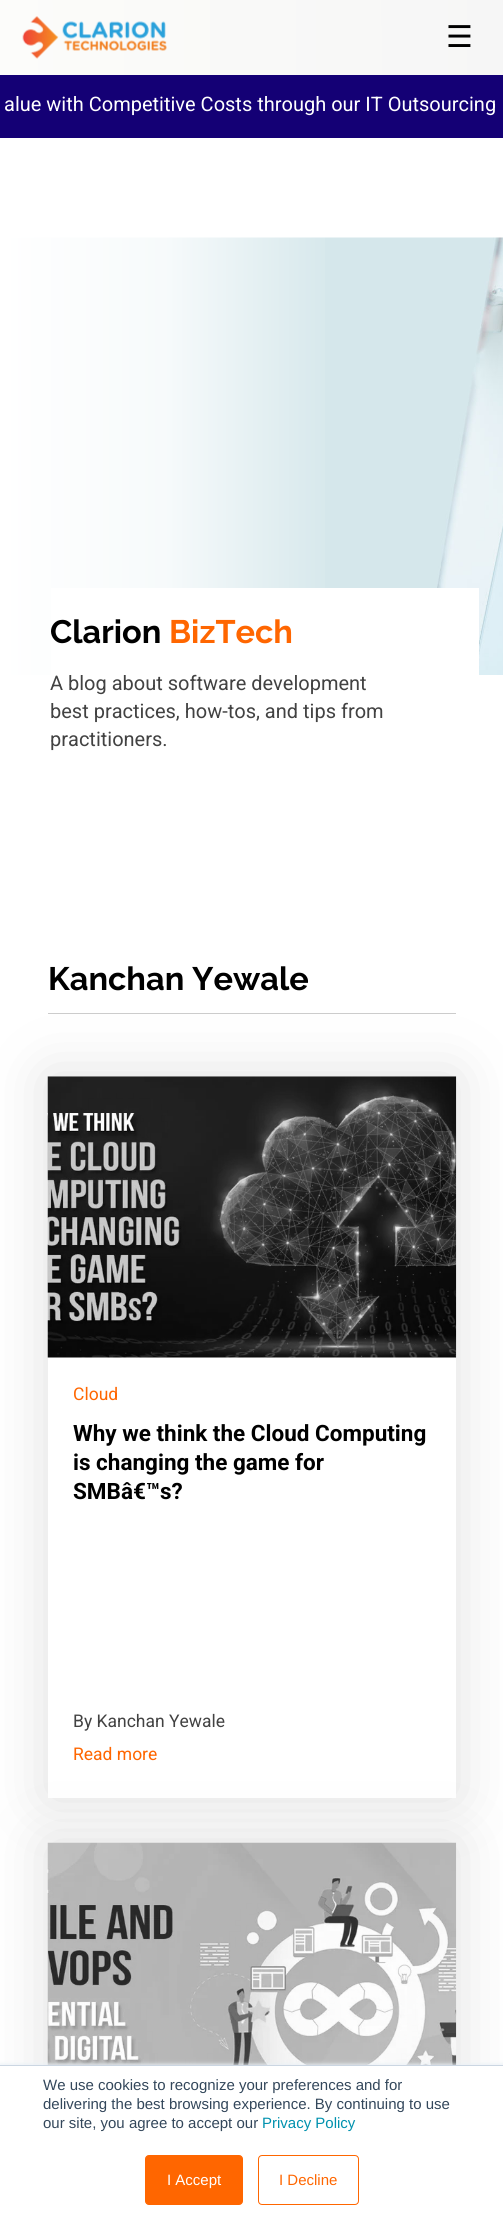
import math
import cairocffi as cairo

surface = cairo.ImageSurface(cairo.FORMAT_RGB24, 503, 2229)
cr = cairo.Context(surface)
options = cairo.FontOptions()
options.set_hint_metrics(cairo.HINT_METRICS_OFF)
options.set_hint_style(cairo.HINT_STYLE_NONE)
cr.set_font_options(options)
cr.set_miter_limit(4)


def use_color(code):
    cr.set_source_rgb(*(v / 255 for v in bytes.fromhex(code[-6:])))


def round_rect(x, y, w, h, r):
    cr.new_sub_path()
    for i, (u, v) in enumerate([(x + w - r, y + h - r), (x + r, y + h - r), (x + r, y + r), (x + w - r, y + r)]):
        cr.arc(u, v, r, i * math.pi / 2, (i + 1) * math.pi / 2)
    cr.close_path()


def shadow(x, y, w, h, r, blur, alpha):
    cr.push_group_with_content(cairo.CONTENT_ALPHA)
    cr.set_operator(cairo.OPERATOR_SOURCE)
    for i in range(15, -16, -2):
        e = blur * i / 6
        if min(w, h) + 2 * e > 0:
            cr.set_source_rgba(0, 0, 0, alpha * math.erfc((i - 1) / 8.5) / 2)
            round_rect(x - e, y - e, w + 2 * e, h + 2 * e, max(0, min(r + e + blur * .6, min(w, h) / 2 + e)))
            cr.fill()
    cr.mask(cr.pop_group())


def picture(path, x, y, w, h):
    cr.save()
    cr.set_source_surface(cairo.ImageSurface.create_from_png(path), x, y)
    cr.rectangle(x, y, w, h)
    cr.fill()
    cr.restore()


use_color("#ffffff")
cr.paint()
gradient = cairo.LinearGradient(0, 38, 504, 37)
gradient.add_color_stop_rgba(0, 0.988, 0.988, 0.98, 1)
gradient.add_color_stop_rgba(1, 0.965, 0.965, 0.965, 1)
cr.set_source(gradient)
cr.rectangle(0, 0, 503, 75)
cr.fill()
picture("img1.png", 22, 16, 145, 43)
cr.select_font_face("DejaVu Sans")
cr.set_font_size(30)
use_color("#000000")
cr.move_to(446, 47)
cr.show_text("☰")
use_color("#140075")
cr.rectangle(0, 75, 503, 63)
cr.fill()
cr.select_font_face("Roboto")
cr.set_font_size(20)
use_color("#ffffff")
cr.move_to(4, 111)
cr.show_text("alue with Competitive Costs through our IT Outsourcing")
picture("img2.png", 5, 237, 498, 438)
gradient = cairo.LinearGradient(0, 518, 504, 518)
gradient.add_color_stop_rgba(0, 1, 1, 1, 1)
gradient.add_color_stop_rgba(0.33, 1, 1, 1, 0.8)
gradient.add_color_stop_rgba(0.67, 1, 1, 1, 0)
gradient.add_color_stop_rgba(1, 1, 1, 1, 0)
cr.set_source(gradient)
cr.rectangle(5, 237, 320, 438)
cr.fill()
use_color("#ffffff")
cr.rectangle(51, 588, 428, 87)
cr.fill()
cr.select_font_face("Raleway", cairo.FONT_SLANT_NORMAL, cairo.FONT_WEIGHT_BOLD)
cr.set_font_size(32.5)
use_color("#000000")
cr.move_to(50, 643)
cr.show_text("Clarion")
use_color("#ff6600")
cr.move_to(169, 643)
cr.show_text("BizTech")
cr.select_font_face("Roboto")
cr.set_font_size(20)
use_color("#424242")
cr.move_to(50, 690)
cr.show_text("A blog about software development")
cr.move_to(50, 718)
cr.show_text("best practices, how-tos, and tips from")
cr.move_to(50, 746)
cr.show_text("practitioners.")
use_color("#cccccc")
cr.rectangle(48, 1013, 408, 1)
cr.fill()
cr.select_font_face("Raleway", cairo.FONT_SLANT_NORMAL, cairo.FONT_WEIGHT_BOLD)
cr.set_font_size(32.5)
use_color("#000000")
cr.move_to(48, 990)
cr.show_text("Kanchan Yewale")
cr.save()
cr.set_fill_rule(cairo.FILL_RULE_EVEN_ODD)
cr.new_path()
cr.move_to(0, 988)
cr.line_to(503, 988)
cr.line_to(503, 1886)
cr.line_to(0, 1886)
cr.close_path()
cr.move_to(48, 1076)
cr.line_to(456, 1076)
cr.line_to(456, 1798)
cr.line_to(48, 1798)
cr.close_path()
cr.clip()
use_color("#cccccc")
shadow(48, 1076, 408, 722, 0, 29, 0.62)
cr.restore()
picture("img3.png", 47, 1076, 410, 282)
cr.set_source_rgba(1, 1, 1, 0.4)
cr.rectangle(72, 1797, 360, 1)
cr.fill()
cr.select_font_face("Roboto")
cr.set_font_size(17.5)
use_color("#ff6600")
cr.move_to(73, 1400)
cr.show_text("Cloud")
cr.select_font_face("Roboto", cairo.FONT_SLANT_NORMAL, cairo.FONT_WEIGHT_BOLD)
cr.set_font_size(22.5)
use_color("#000000")
cr.move_to(73, 1441)
cr.show_text("Why we think the Cloud Computing")
cr.move_to(73, 1470)
cr.show_text("is changing the game for")
cr.move_to(73, 1499)
cr.show_text("SMBâ€™s?")
cr.select_font_face("Roboto")
cr.set_font_size(17.5)
use_color("#424242")
cr.move_to(73, 1727)
cr.show_text("By Kanchan Yewale")
use_color("#cccccc")
shadow(48, 1843, 408, 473, 0, 29, 0.62)
use_color("#ff6600")
cr.move_to(73, 1760)
cr.show_text("Read more")
picture("img4.png", 47, 1842, 410, 223)
use_color("#eaf0f6")
shadow(0, 2064, 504, 165, 0, 2, 1)
use_color("#ffffff")
cr.rectangle(0, 2066, 503, 163)
cr.fill()
use_color("#cbd6e2")
cr.rectangle(0, 2065, 503, 1)
cr.fill()
cr.select_font_face("Liberation Sans")
cr.set_font_size(15)
use_color("#33475b")
cr.move_to(43, 2090)
cr.show_text("We use cookies to recognize your preferences and for")
cr.move_to(43, 2109)
cr.show_text("delivering the best browsing experience. By continuing to use")
cr.move_to(43, 2128)
cr.show_text("our site, you agree to accept our")
use_color("#0091ae")
cr.move_to(262, 2128)
cr.show_text("Privacy Policy")
use_color("#ff6600")
round_rect(145.5, 2155.5, 97, 49, 3.5)
cr.fill_preserve()
cr.set_line_width(1)
cr.stroke()
use_color("#ffffff")
cr.move_to(167, 2185)
cr.show_text("I Accept")
round_rect(258.5, 2155.5, 100, 49, 3.5)
use_color("#ff6600")
cr.stroke()
cr.move_to(279, 2185)
cr.show_text("I Decline")
surface.write_to_png("result.png")
